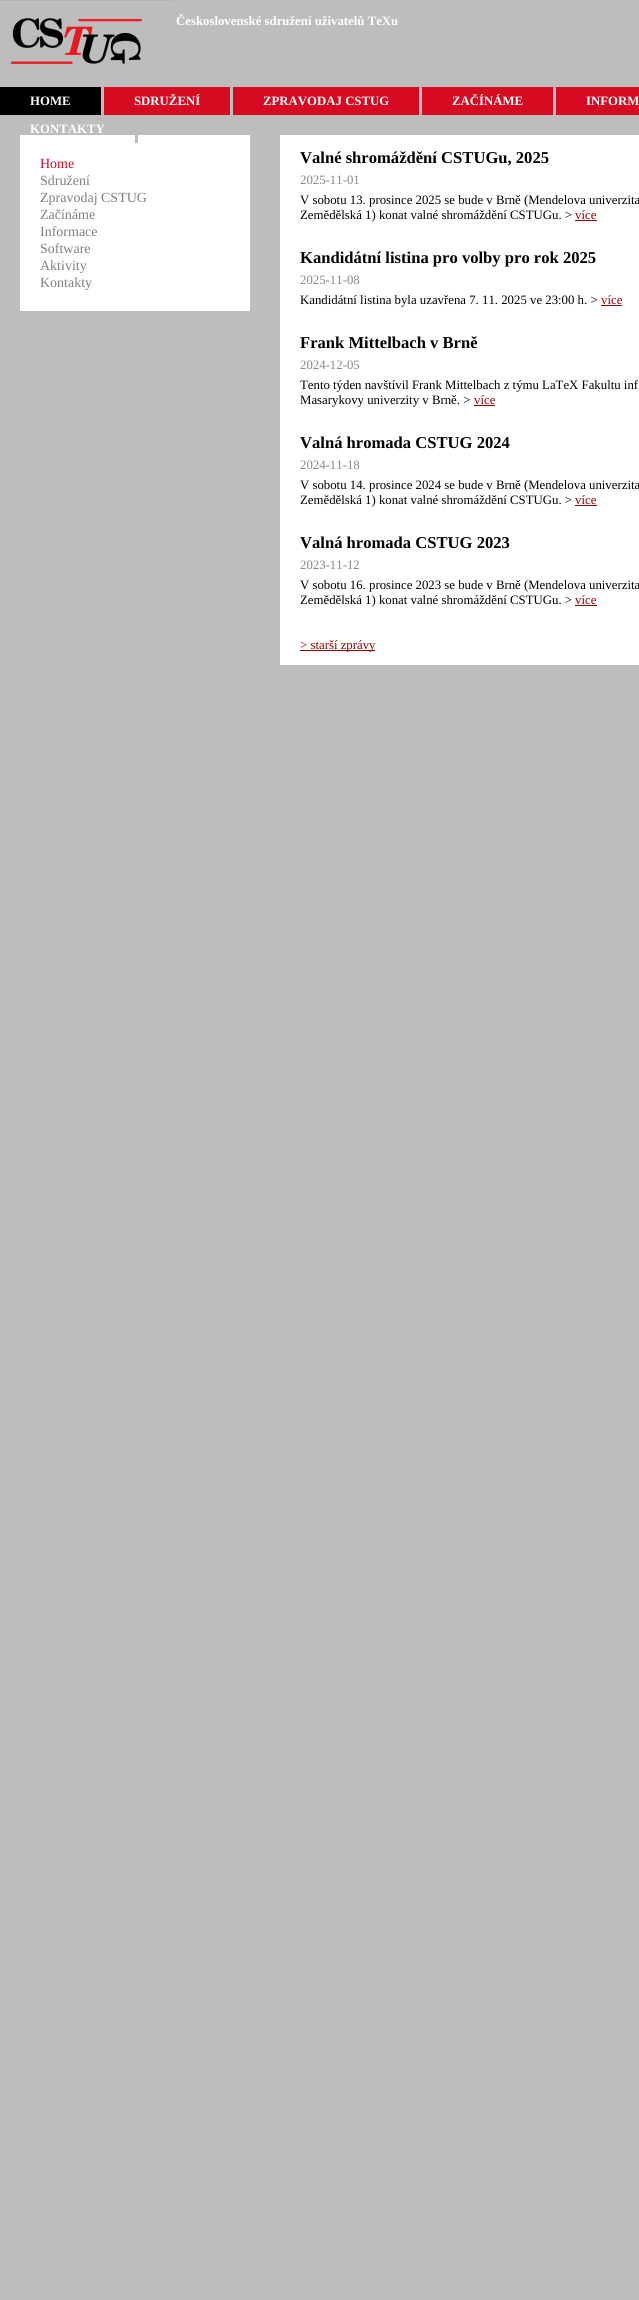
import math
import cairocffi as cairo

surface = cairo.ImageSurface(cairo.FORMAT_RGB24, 639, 2300)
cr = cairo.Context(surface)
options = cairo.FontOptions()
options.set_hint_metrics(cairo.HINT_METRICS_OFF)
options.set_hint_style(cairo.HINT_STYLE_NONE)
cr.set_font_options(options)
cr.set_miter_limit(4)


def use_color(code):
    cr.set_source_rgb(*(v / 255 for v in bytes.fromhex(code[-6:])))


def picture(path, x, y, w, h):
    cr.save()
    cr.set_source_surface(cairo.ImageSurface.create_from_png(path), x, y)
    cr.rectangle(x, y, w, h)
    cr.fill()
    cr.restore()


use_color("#bdbdbd")
cr.paint()
picture("img1.png", 0, 0, 173, 64)
cr.select_font_face("Liberation Serif", cairo.FONT_SLANT_NORMAL, cairo.FONT_WEIGHT_BOLD)
cr.set_font_size(12.8)
use_color("#ffffff")
cr.move_to(176, 25)
cr.show_text("Československé sdružení uživatelů TeXu")
use_color("#d40b21")
cr.rectangle(104, 87, 535, 28)
cr.fill()
use_color("#000000")
cr.rectangle(0, 87, 101, 28)
cr.fill()
use_color("#ffffff")
cr.move_to(30, 105)
cr.show_text("HOME")
use_color("#bdbdbd")
cr.rectangle(230, 87, 3, 28)
cr.fill()
use_color("#ffffff")
cr.move_to(134, 105)
cr.show_text("SDRUŽENÍ")
use_color("#bdbdbd")
cr.rectangle(419, 87, 3, 28)
cr.fill()
use_color("#ffffff")
cr.move_to(263, 105)
cr.show_text("ZPRAVODAJ CSTUG")
use_color("#bdbdbd")
cr.rectangle(553, 87, 3, 28)
cr.fill()
use_color("#ffffff")
cr.move_to(452, 105)
cr.show_text("ZAČÍNÁME")
cr.move_to(586, 105)
cr.show_text("INFORM")
cr.rectangle(20, 135, 230, 176)
cr.fill()
use_color("#bdbdbd")
cr.rectangle(135, 135, 3, 8)
cr.fill()
use_color("#ffffff")
cr.move_to(30, 133)
cr.show_text("KONTAKTY")
cr.select_font_face("Liberation Serif")
cr.set_font_size(14)
use_color("#d40b21")
cr.move_to(40, 168)
cr.show_text("Home")
use_color("#808080")
cr.move_to(40, 185)
cr.show_text("Sdružení")
cr.move_to(40, 202)
cr.show_text("Zpravodaj CSTUG")
cr.move_to(40, 219)
cr.show_text("Začínáme")
cr.move_to(40, 236)
cr.show_text("Informace")
cr.move_to(40, 253)
cr.show_text("Software")
cr.move_to(40, 270)
cr.show_text("Aktivity")
cr.move_to(40, 287)
cr.show_text("Kontakty")
use_color("#ffffff")
cr.rectangle(280, 135, 359, 530)
cr.fill()
cr.select_font_face("Liberation Serif", cairo.FONT_SLANT_NORMAL, cairo.FONT_WEIGHT_BOLD)
cr.set_font_size(16.6)
use_color("#000000")
cr.move_to(300, 163)
cr.show_text("Valné shromáždění CSTUGu, 2025")
cr.select_font_face("Liberation Serif")
cr.set_font_size(12.8)
use_color("#888888")
cr.move_to(300, 184)
cr.show_text("2025-11-01")
use_color("#000000")
cr.move_to(300, 204)
cr.show_text("V sobotu 13. prosince 2025 se bude v Brně (Mendelova univerzita")
cr.move_to(300, 219)
cr.show_text("Zemědělská 1) konat valné shromáždění CSTUGu. >")
use_color("#900000")
cr.move_to(575, 219)
cr.show_text("více")
cr.rectangle(575, 220, 22, 1)
cr.fill()
cr.select_font_face("Liberation Serif", cairo.FONT_SLANT_NORMAL, cairo.FONT_WEIGHT_BOLD)
cr.set_font_size(16.6)
use_color("#000000")
cr.move_to(300, 263)
cr.show_text("Kandidátní listina pro volby pro rok 2025")
cr.select_font_face("Liberation Serif")
cr.set_font_size(12.8)
use_color("#888888")
cr.move_to(300, 284)
cr.show_text("2025-11-08")
use_color("#000000")
cr.move_to(300, 304)
cr.show_text("Kandidátní listina byla uzavřena 7. 11. 2025 ve 23:00 h. >")
use_color("#900000")
cr.move_to(601, 304)
cr.show_text("více")
cr.rectangle(601, 305, 21, 1)
cr.fill()
cr.select_font_face("Liberation Serif", cairo.FONT_SLANT_NORMAL, cairo.FONT_WEIGHT_BOLD)
cr.set_font_size(16.6)
use_color("#000000")
cr.move_to(300, 348)
cr.show_text("Frank Mittelbach v Brně")
cr.select_font_face("Liberation Serif")
cr.set_font_size(12.8)
use_color("#888888")
cr.move_to(300, 369)
cr.show_text("2024-12-05")
use_color("#000000")
cr.move_to(300, 389)
cr.show_text("Tento týden navštívil Frank Mittelbach z týmu LaTeX Fakultu inf")
cr.move_to(300, 404)
cr.show_text("Masarykovy univerzity v Brně. >")
use_color("#900000")
cr.move_to(474, 404)
cr.show_text("více")
cr.rectangle(474, 405, 21, 1)
cr.fill()
cr.select_font_face("Liberation Serif", cairo.FONT_SLANT_NORMAL, cairo.FONT_WEIGHT_BOLD)
cr.set_font_size(16.6)
use_color("#000000")
cr.move_to(300, 448)
cr.show_text("Valná hromada CSTUG 2024")
cr.select_font_face("Liberation Serif")
cr.set_font_size(12.8)
use_color("#888888")
cr.move_to(300, 469)
cr.show_text("2024-11-18")
use_color("#000000")
cr.move_to(300, 489)
cr.show_text("V sobotu 14. prosince 2024 se bude v Brně (Mendelova univerzita")
cr.move_to(300, 504)
cr.show_text("Zemědělská 1) konat valné shromáždění CSTUGu. >")
use_color("#900000")
cr.move_to(575, 504)
cr.show_text("více")
cr.rectangle(575, 505, 22, 1)
cr.fill()
cr.select_font_face("Liberation Serif", cairo.FONT_SLANT_NORMAL, cairo.FONT_WEIGHT_BOLD)
cr.set_font_size(16.6)
use_color("#000000")
cr.move_to(300, 548)
cr.show_text("Valná hromada CSTUG 2023")
cr.select_font_face("Liberation Serif")
cr.set_font_size(12.8)
use_color("#888888")
cr.move_to(300, 569)
cr.show_text("2023-11-12")
use_color("#000000")
cr.move_to(300, 589)
cr.show_text("V sobotu 16. prosince 2023 se bude v Brně (Mendelova univerzita")
cr.move_to(300, 604)
cr.show_text("Zemědělská 1) konat valné shromáždění CSTUGu. >")
use_color("#900000")
cr.move_to(575, 604)
cr.show_text("více")
cr.rectangle(575, 605, 22, 1)
cr.fill()
cr.rectangle(300, 650, 75, 1)
cr.fill()
cr.move_to(300, 649)
cr.show_text("> starší zprávy")
surface.write_to_png("result.png")
